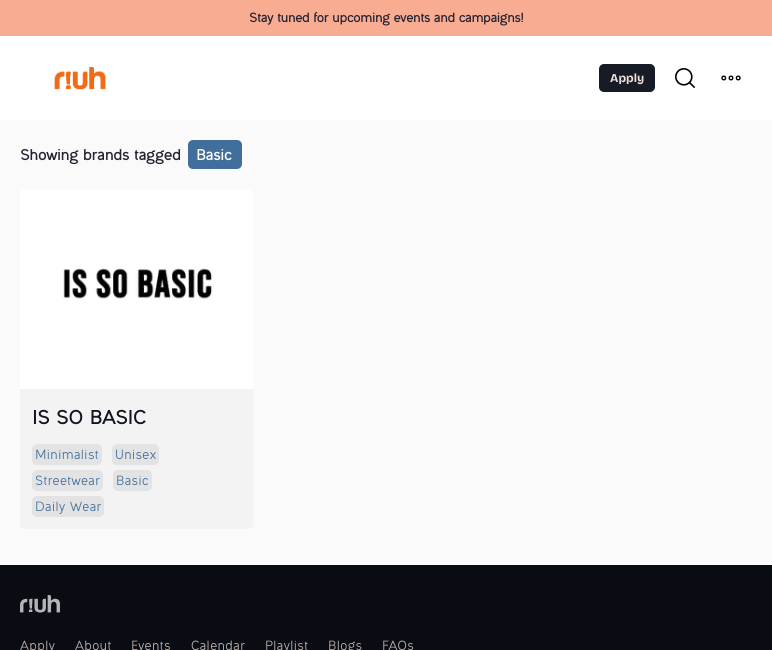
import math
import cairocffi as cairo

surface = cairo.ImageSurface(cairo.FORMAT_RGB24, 772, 650)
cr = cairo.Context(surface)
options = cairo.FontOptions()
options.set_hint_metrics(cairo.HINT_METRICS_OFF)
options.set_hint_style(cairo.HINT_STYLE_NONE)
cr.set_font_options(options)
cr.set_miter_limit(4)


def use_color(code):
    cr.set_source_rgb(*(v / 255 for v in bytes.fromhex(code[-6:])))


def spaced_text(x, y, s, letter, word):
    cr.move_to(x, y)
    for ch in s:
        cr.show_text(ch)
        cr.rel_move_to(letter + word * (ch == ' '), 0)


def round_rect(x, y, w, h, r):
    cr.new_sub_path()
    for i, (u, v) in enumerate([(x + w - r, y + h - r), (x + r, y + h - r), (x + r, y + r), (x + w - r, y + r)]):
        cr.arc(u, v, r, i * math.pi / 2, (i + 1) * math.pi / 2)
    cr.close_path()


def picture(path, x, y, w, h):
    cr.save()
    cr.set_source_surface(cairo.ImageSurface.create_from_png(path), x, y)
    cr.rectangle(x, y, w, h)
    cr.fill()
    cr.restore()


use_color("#ffffff")
cr.paint()
use_color("#f8ad93")
cr.rectangle(0, 0, 772, 36)
cr.fill()
cr.select_font_face("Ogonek", cairo.FONT_SLANT_NORMAL, cairo.FONT_WEIGHT_BOLD)
cr.set_font_size(12)
use_color("#272231")
spaced_text(249, 22, "Stay tuned for upcoming events and campaigns!", -1, 0)
picture("img1.png", 54, 67, 52, 23)
picture("img2.png", 54, 67, 52, 23)
use_color("#161b25")
round_rect(599, 64, 56, 28, 5)
cr.fill()
cr.select_font_face("Bricolage Grotesque", cairo.FONT_SLANT_NORMAL, cairo.FONT_WEIGHT_BOLD)
use_color("#f0e0d8")
cr.move_to(610, 82)
cr.show_text("Apply")
picture("img3.png", 675, 68, 20, 20)
cr.arc(723.8, 78, 1.8, 0, 2 * math.pi)
use_color("#000000")
cr.set_line_width(1.4)
cr.stroke()
cr.arc(731, 78, 1.8, 0, 2 * math.pi)
cr.stroke()
cr.arc(738.2, 78, 1.8, 0, 2 * math.pi)
cr.stroke()
use_color("#fafafa")
cr.rectangle(0, 120, 772, 445)
cr.fill()
cr.select_font_face("Ogonek", cairo.FONT_SLANT_NORMAL, cairo.FONT_WEIGHT_BOLD)
cr.set_font_size(14)
use_color("#272231")
spaced_text(20, 160, "Showing brands tagged", -1, 0)
use_color("#416f9c")
round_rect(188, 140, 54, 29, 5)
cr.fill()
use_color("#ffffff")
spaced_text(196, 160, "Basic", -1, 0)
picture("img4.png", 20, 189, 233, 200)
use_color("#f3f3f3")
cr.new_path()
cr.move_to(20, 389)
cr.line_to(253, 389)
cr.line_to(253, 524)
cr.curve_to(253, 527, 251, 529, 248, 529)
cr.line_to(25, 529)
cr.curve_to(22, 529, 20, 527, 20, 524)
cr.close_path()
cr.fill()
cr.set_font_size(18)
use_color("#10151f")
spaced_text(32, 424, "IS SO BASIC", -0.75, 0)
use_color("#e3e3e3")
round_rect(32, 444, 70, 21, 5)
cr.fill()
cr.select_font_face("Ogonek")
cr.set_font_size(12)
use_color("#416f9c")
cr.move_to(35, 459)
cr.show_text("Minimalist")
use_color("#e3e3e3")
round_rect(112, 444, 47, 21, 5)
cr.fill()
use_color("#416f9c")
cr.move_to(115, 459)
cr.show_text("Unisex")
use_color("#e3e3e3")
round_rect(32, 470, 71, 21, 5)
cr.fill()
use_color("#416f9c")
cr.move_to(35, 485)
cr.show_text("Streetwear")
use_color("#e3e3e3")
round_rect(113, 470, 39, 21, 5)
cr.fill()
use_color("#416f9c")
cr.move_to(116, 485)
cr.show_text("Basic")
use_color("#e3e3e3")
round_rect(32, 496, 72, 21, 5)
cr.fill()
use_color("#416f9c")
cr.move_to(35, 511)
cr.show_text("Daily Wear")
use_color("#090c13")
cr.rectangle(0, 565, 772, 85)
cr.fill()
picture("img5.png", 20, 595, 40, 18)
use_color("#bfb3af")
cr.move_to(20, 650)
cr.show_text("Apply")
cr.move_to(75, 650)
cr.show_text("About")
cr.move_to(131, 650)
cr.show_text("Events")
cr.move_to(191, 650)
cr.show_text("Calendar")
cr.move_to(265, 650)
cr.show_text("Playlist")
cr.move_to(328, 650)
cr.show_text("Blogs")
cr.move_to(382, 650)
cr.show_text("FAQs")
surface.write_to_png("result.png")
